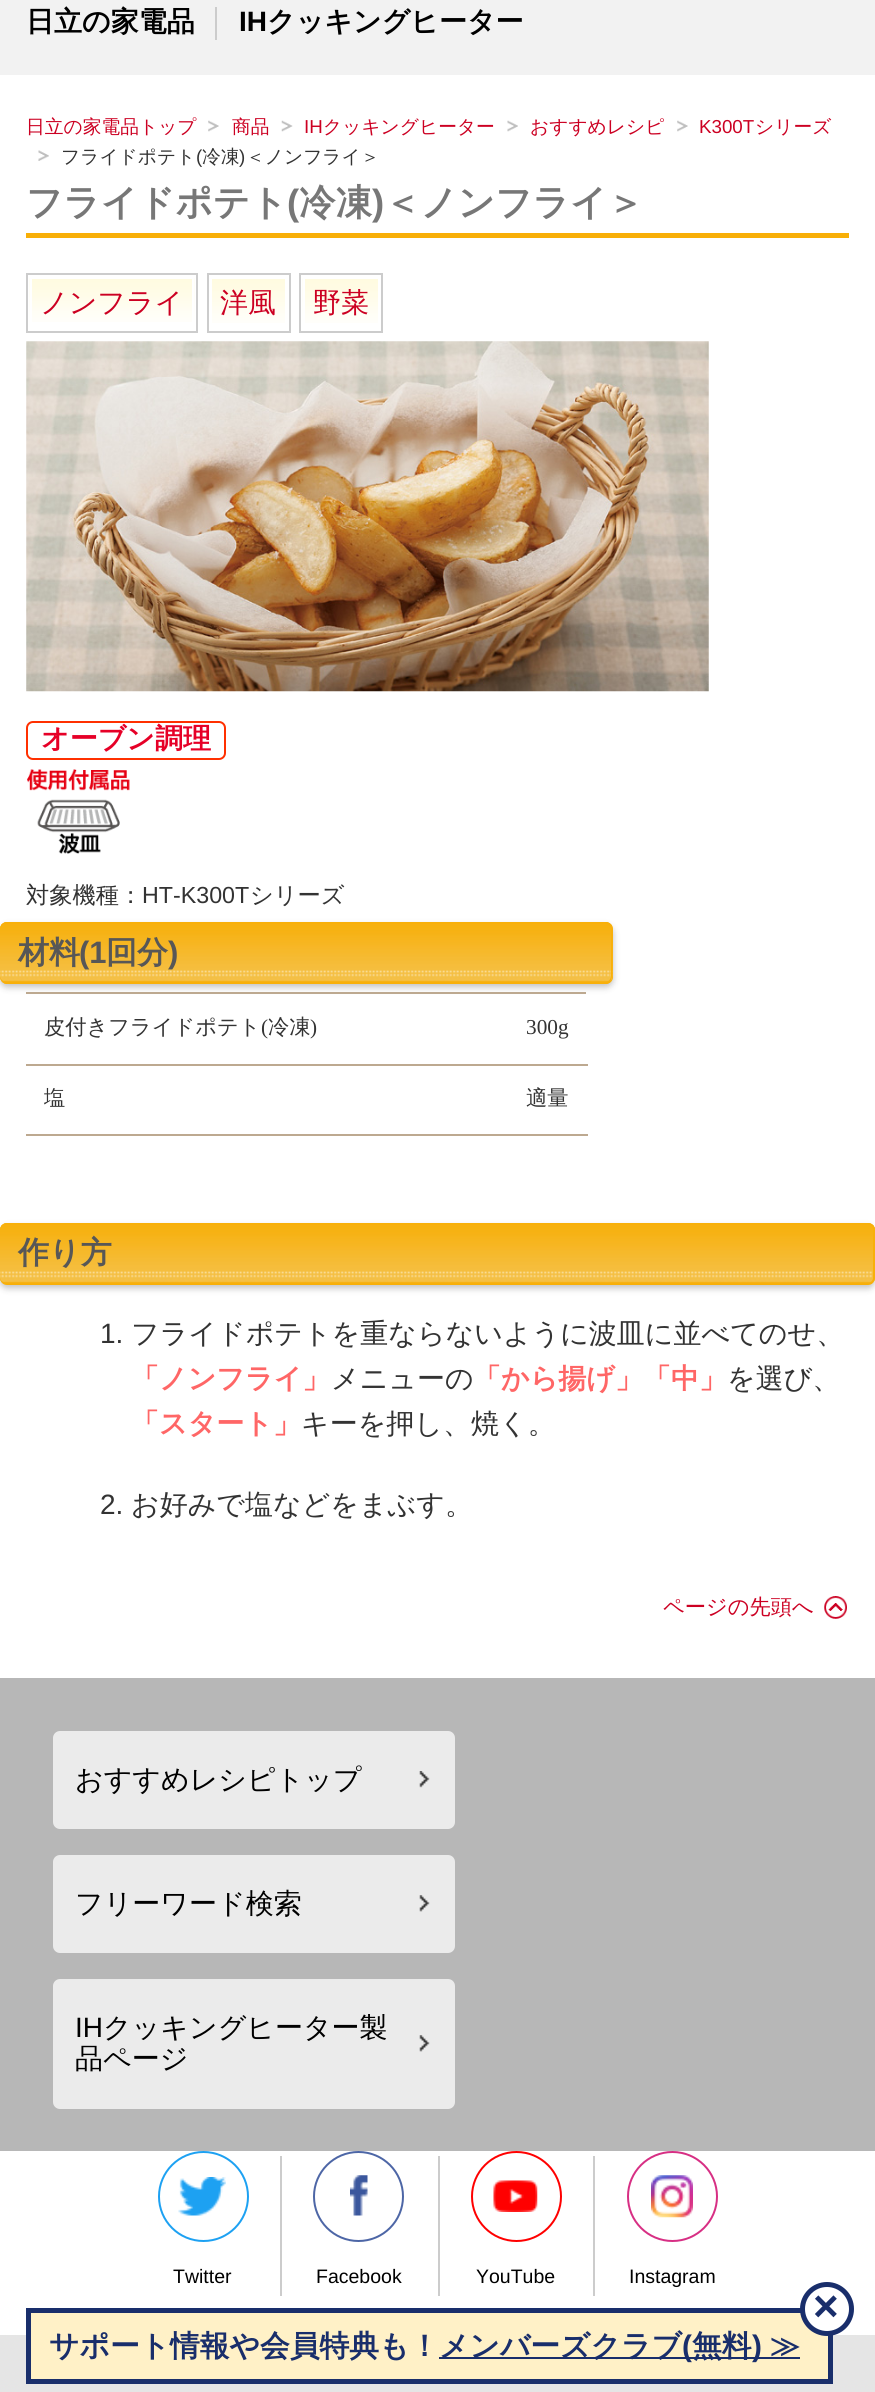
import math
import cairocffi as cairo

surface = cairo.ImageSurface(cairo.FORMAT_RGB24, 875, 2392)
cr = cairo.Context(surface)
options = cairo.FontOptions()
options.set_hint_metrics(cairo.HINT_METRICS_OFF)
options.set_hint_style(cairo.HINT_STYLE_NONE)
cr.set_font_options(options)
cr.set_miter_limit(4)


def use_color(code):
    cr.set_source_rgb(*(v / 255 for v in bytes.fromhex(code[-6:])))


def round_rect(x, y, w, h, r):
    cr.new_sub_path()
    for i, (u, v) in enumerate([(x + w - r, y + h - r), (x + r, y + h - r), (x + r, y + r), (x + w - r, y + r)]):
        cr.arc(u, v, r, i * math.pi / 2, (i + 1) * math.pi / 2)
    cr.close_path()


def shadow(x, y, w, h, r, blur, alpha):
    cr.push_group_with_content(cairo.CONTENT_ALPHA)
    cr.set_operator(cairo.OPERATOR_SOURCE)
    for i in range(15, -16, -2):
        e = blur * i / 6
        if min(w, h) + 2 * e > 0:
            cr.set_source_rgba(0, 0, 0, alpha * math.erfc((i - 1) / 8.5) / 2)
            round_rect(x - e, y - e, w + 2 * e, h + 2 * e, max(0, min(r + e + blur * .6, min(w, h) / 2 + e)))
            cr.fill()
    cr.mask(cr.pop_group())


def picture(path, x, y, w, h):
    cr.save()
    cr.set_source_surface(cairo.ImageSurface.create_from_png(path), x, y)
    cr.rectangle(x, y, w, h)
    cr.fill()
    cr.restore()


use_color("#f2f2f2")
cr.paint()
cr.select_font_face("WenQuanYi Zen Hei", cairo.FONT_SLANT_NORMAL, cairo.FONT_WEIGHT_BOLD)
cr.set_font_size(28)
use_color("#000000")
cr.move_to(26, 31)
cr.show_text("日立の家電品")
use_color("#cccccc")
cr.rectangle(215, 7, 2, 33)
cr.fill()
cr.select_font_face("Liberation Sans", cairo.FONT_SLANT_NORMAL, cairo.FONT_WEIGHT_BOLD)
use_color("#000000")
cr.move_to(239, 31)
cr.show_text("IH")
cr.select_font_face("WenQuanYi Zen Hei", cairo.FONT_SLANT_NORMAL, cairo.FONT_WEIGHT_BOLD)
cr.move_to(267, 31)
cr.show_text("クッキングヒーター")
use_color("#ffffff")
cr.rectangle(0, 75, 875, 1603)
cr.fill()
cr.select_font_face("WenQuanYi Zen Hei Medium")
cr.set_font_size(18.75)
use_color("#cc0022")
cr.move_to(26, 133)
cr.show_text("日立の家電品トップ")
picture("img1.png", 208, 120, 11, 12)
cr.move_to(232, 133)
cr.show_text("商品")
picture("img2.png", 281, 120, 12, 12)
cr.select_font_face("Liberation Sans")
cr.move_to(304, 133)
cr.show_text("IH")
cr.select_font_face("WenQuanYi Zen Hei Medium")
cr.move_to(323, 133)
cr.show_text("クッキングヒーター")
picture("img3.png", 507, 120, 11, 12)
cr.move_to(530, 133)
cr.show_text("おすすめレシピ")
picture("img1.png", 677, 120, 11, 12)
cr.select_font_face("Liberation Sans")
cr.move_to(699, 133)
cr.show_text("K300T")
cr.select_font_face("WenQuanYi Zen Hei Medium")
cr.move_to(755, 133)
cr.show_text("シリーズ")
picture("img4.png", 38, 150, 11, 11)
use_color("#333333")
cr.move_to(61, 163)
cr.show_text("フライドポテト")
cr.select_font_face("Liberation Sans")
cr.move_to(196, 163)
cr.show_text("(")
cr.select_font_face("WenQuanYi Zen Hei Medium")
cr.move_to(202, 163)
cr.show_text("冷凍")
cr.select_font_face("Liberation Sans")
cr.move_to(239, 163)
cr.show_text(")")
cr.select_font_face("WenQuanYi Zen Hei Medium")
cr.move_to(246, 163)
cr.show_text("＜ノンフライ＞")
use_color("#f8af07")
cr.rectangle(26, 233, 823, 5)
cr.fill()
cr.select_font_face("WenQuanYi Zen Hei", cairo.FONT_SLANT_NORMAL, cairo.FONT_WEIGHT_BOLD)
cr.set_font_size(36.5)
use_color("#777777")
cr.move_to(26, 215)
cr.show_text("フライドポテト")
cr.select_font_face("Liberation Sans", cairo.FONT_SLANT_NORMAL, cairo.FONT_WEIGHT_BOLD)
cr.move_to(287, 215)
cr.show_text("(")
cr.select_font_face("WenQuanYi Zen Hei", cairo.FONT_SLANT_NORMAL, cairo.FONT_WEIGHT_BOLD)
cr.move_to(299, 215)
cr.show_text("冷凍")
cr.select_font_face("Liberation Sans", cairo.FONT_SLANT_NORMAL, cairo.FONT_WEIGHT_BOLD)
cr.move_to(372, 215)
cr.show_text(")")
cr.select_font_face("WenQuanYi Zen Hei", cairo.FONT_SLANT_NORMAL, cairo.FONT_WEIGHT_BOLD)
cr.move_to(384, 215)
cr.show_text("＜ノンフライ＞")
cr.rectangle(27, 274, 170, 58)
use_color("#cccccc")
cr.stroke()
picture("img5.png", 29, 278, 166, 44)
cr.rectangle(31, 278, 162, 50)
use_color("#ffffff")
cr.stroke()
cr.select_font_face("WenQuanYi Zen Hei Medium")
cr.set_font_size(28)
use_color("#cc0022")
cr.move_to(40, 312)
cr.show_text("ノンフライ")
cr.rectangle(208, 274, 82, 58)
use_color("#cccccc")
cr.stroke()
picture("img6.png", 212, 279, 73, 44)
use_color("#cc0022")
cr.move_to(220, 312)
cr.show_text("洋風")
cr.rectangle(300, 274, 82, 58)
use_color("#cccccc")
cr.stroke()
picture("img7.png", 302, 278, 76, 45)
cr.rectangle(304, 278, 75, 50)
use_color("#ffffff")
cr.stroke()
use_color("#cc0022")
cr.move_to(313, 312)
cr.show_text("野菜")
picture("img8.png", 26, 341, 683, 351)
round_rect(27, 722, 198, 37, 6)
use_color("#ff3000")
cr.stroke()
cr.select_font_face("WenQuanYi Zen Hei", cairo.FONT_SLANT_NORMAL, cairo.FONT_WEIGHT_BOLD)
use_color("#e60027")
cr.move_to(41, 748)
cr.show_text("オーブン調理")
picture("img9.png", 27, 769, 103, 85)
cr.select_font_face("WenQuanYi Zen Hei Medium")
cr.set_font_size(23.25)
use_color("#333333")
cr.move_to(26, 903)
cr.show_text("対象機種：")
cr.select_font_face("Liberation Sans")
cr.move_to(142, 903)
cr.show_text("HT-K300T")
cr.select_font_face("WenQuanYi Zen Hei Medium")
cr.move_to(250, 903)
cr.show_text("シリーズ")
use_color("#000000")
shadow(0, 926, 613, 61, 7, 3.5, 0.25)
use_color("#f8af08")
round_rect(0, 922, 613, 62, 7)
cr.fill()
picture("img10.png", 0, 922, 613, 60)
use_color("#f8b00a")
cr.set_fill_rule(cairo.FILL_RULE_EVEN_ODD)
cr.new_path()
cr.move_to(7, 922)
cr.line_to(606, 922)
cr.curve_to(609, 922, 612, 925, 612, 929)
cr.line_to(612, 976)
cr.curve_to(612, 980, 609, 984, 606, 984)
cr.line_to(7, 984)
cr.curve_to(3, 984, 0, 980, 0, 976)
cr.line_to(0, 929)
cr.curve_to(0, 925, 3, 922, 7, 922)
cr.close_path()
cr.move_to(7, 924)
cr.line_to(606, 924)
cr.curve_to(608, 924, 611, 926, 611, 929)
cr.line_to(611, 976)
cr.curve_to(611, 979, 608, 982, 606, 982)
cr.line_to(7, 982)
cr.curve_to(3, 982, 0, 979, 0, 976)
cr.line_to(0, 929)
cr.curve_to(0, 926, 3, 924, 7, 924)
cr.close_path()
cr.fill()
cr.select_font_face("WenQuanYi Zen Hei", cairo.FONT_SLANT_NORMAL, cairo.FONT_WEIGHT_BOLD)
cr.set_font_size(31)
use_color("#575757")
cr.move_to(18, 963)
cr.show_text("材料")
cr.select_font_face("Liberation Sans", cairo.FONT_SLANT_NORMAL, cairo.FONT_WEIGHT_BOLD)
cr.move_to(79, 963)
cr.show_text("(1")
cr.select_font_face("WenQuanYi Zen Hei", cairo.FONT_SLANT_NORMAL, cairo.FONT_WEIGHT_BOLD)
cr.move_to(106, 963)
cr.show_text("回分")
cr.select_font_face("Liberation Sans", cairo.FONT_SLANT_NORMAL, cairo.FONT_WEIGHT_BOLD)
cr.move_to(168, 963)
cr.show_text(")")
use_color("#bda990")
cr.rectangle(26, 992, 560, 2)
cr.fill()
cr.select_font_face("WenQuanYi Zen Hei Medium")
cr.set_font_size(21.25)
use_color("#333333")
cr.move_to(44, 1034)
cr.show_text("皮付きフライドポテト")
cr.select_font_face("Liberation Serif")
cr.move_to(261, 1034)
cr.show_text("(")
cr.select_font_face("WenQuanYi Zen Hei Medium")
cr.move_to(268, 1034)
cr.show_text("冷凍")
cr.select_font_face("Liberation Serif")
cr.move_to(310, 1034)
cr.show_text(")")
use_color("#bda990")
cr.rectangle(26, 1064, 562, 2)
cr.fill()
use_color("#333333")
cr.move_to(526, 1034)
cr.show_text("300g")
cr.select_font_face("WenQuanYi Zen Hei Medium")
cr.move_to(44, 1105)
cr.show_text("塩")
use_color("#bda990")
cr.rectangle(26, 1134, 562, 2)
cr.fill()
use_color("#333333")
cr.move_to(526, 1105)
cr.show_text("適量")
use_color("#000000")
shadow(0, 1227, 875, 61, 7, 3.5, 0.25)
use_color("#f8af08")
round_rect(0, 1223, 875, 62, 7)
cr.fill()
picture("img11.png", 0, 1223, 875, 60)
use_color("#f8b00a")
cr.new_path()
cr.move_to(7, 1223)
cr.line_to(868, 1223)
cr.curve_to(872, 1223, 875, 1226, 875, 1230)
cr.line_to(875, 1278)
cr.curve_to(875, 1281, 872, 1284, 868, 1284)
cr.line_to(7, 1284)
cr.curve_to(3, 1284, 0, 1281, 0, 1278)
cr.line_to(0, 1230)
cr.curve_to(0, 1226, 3, 1223, 7, 1223)
cr.close_path()
cr.move_to(7, 1225)
cr.line_to(868, 1225)
cr.curve_to(871, 1225, 873, 1227, 873, 1230)
cr.line_to(873, 1278)
cr.curve_to(873, 1280, 871, 1283, 868, 1283)
cr.line_to(7, 1283)
cr.curve_to(3, 1283, 0, 1280, 0, 1278)
cr.line_to(0, 1230)
cr.curve_to(0, 1227, 3, 1225, 7, 1225)
cr.close_path()
cr.fill()
cr.select_font_face("WenQuanYi Zen Hei", cairo.FONT_SLANT_NORMAL, cairo.FONT_WEIGHT_BOLD)
cr.set_font_size(31)
use_color("#575757")
cr.move_to(18, 1263)
cr.show_text("作り方")
cr.select_font_face("Liberation Sans")
cr.set_font_size(28)
use_color("#333333")
cr.move_to(100, 1343)
cr.show_text("1.")
cr.select_font_face("WenQuanYi Zen Hei Medium")
cr.move_to(131, 1343)
cr.show_text("フライドポテトを重ならないように波皿に並べてのせ、")
cr.select_font_face("WenQuanYi Zen Hei", cairo.FONT_SLANT_NORMAL, cairo.FONT_WEIGHT_BOLD)
use_color("#ff6666")
cr.move_to(131, 1388)
cr.show_text("「ノンフライ」")
cr.select_font_face("WenQuanYi Zen Hei Medium")
use_color("#333333")
cr.move_to(331, 1388)
cr.show_text("メニューの")
cr.select_font_face("WenQuanYi Zen Hei", cairo.FONT_SLANT_NORMAL, cairo.FONT_WEIGHT_BOLD)
use_color("#ff6666")
cr.move_to(473, 1388)
cr.show_text("「から揚げ」「中」")
cr.select_font_face("WenQuanYi Zen Hei Medium")
use_color("#333333")
cr.move_to(727, 1388)
cr.show_text("を選び、")
cr.select_font_face("WenQuanYi Zen Hei", cairo.FONT_SLANT_NORMAL, cairo.FONT_WEIGHT_BOLD)
use_color("#ff6666")
cr.move_to(131, 1433)
cr.show_text("「スタート」")
cr.select_font_face("WenQuanYi Zen Hei Medium")
use_color("#333333")
cr.move_to(301, 1433)
cr.show_text("キーを押し、焼く。")
cr.select_font_face("Liberation Sans")
cr.move_to(100, 1514)
cr.show_text("2.")
cr.select_font_face("WenQuanYi Zen Hei Medium")
cr.move_to(131, 1514)
cr.show_text("お好みで塩などをまぶす。")
picture("img12.png", 824, 1596, 23, 23)
cr.set_font_size(21.25)
use_color("#cc0022")
cr.move_to(663, 1614)
cr.show_text("ページの先頭へ")
use_color("#b7b7b7")
cr.rectangle(0, 1678, 875, 473)
cr.fill()
use_color("#ebebeb")
round_rect(53, 1731, 402, 98, 7)
cr.fill()
picture("img13.png", 419, 1771, 11, 17)
cr.set_font_size(28)
use_color("#000000")
cr.move_to(75, 1789)
cr.show_text("おすすめレシピトップ")
use_color("#ebebeb")
round_rect(53, 1855, 402, 98, 7)
cr.fill()
picture("img14.png", 419, 1895, 11, 17)
use_color("#000000")
cr.move_to(75, 1913)
cr.show_text("フリーワード検索")
use_color("#ebebeb")
round_rect(53, 1979, 402, 130, 7)
cr.fill()
picture("img14.png", 419, 2035, 11, 17)
cr.select_font_face("Liberation Sans")
use_color("#000000")
cr.move_to(75, 2037)
cr.show_text("IH")
cr.select_font_face("WenQuanYi Zen Hei Medium")
cr.move_to(103, 2037)
cr.show_text("クッキングヒーター製")
cr.move_to(75, 2068)
cr.show_text("品ページ")
use_color("#ffffff")
cr.rectangle(0, 2151, 875, 184)
cr.fill()
cr.arc(203.5, 2196.5, 44.5, 0, 2 * math.pi)
use_color("#1da1f2")
cr.stroke()
picture("img15.png", 178, 2177, 48, 39)
cr.select_font_face("Liberation Sans")
cr.set_font_size(19.5)
use_color("#000000")
cr.move_to(173, 2283)
cr.show_text("Twitter")
use_color("#cccccc")
cr.rectangle(280, 2156, 2, 140)
cr.fill()
cr.arc(358.5, 2196.5, 44.5, 0, 2 * math.pi)
use_color("#4d66a6")
cr.stroke()
picture("img16.png", 350, 2175, 18, 41)
use_color("#000000")
cr.move_to(316, 2283)
cr.show_text("Facebook")
use_color("#cccccc")
cr.rectangle(438, 2156, 2, 140)
cr.fill()
cr.arc(516.5, 2196.5, 44.5, 0, 2 * math.pi)
use_color("#ff0000")
cr.stroke()
picture("img17.png", 493, 2180, 45, 32)
use_color("#000000")
cr.move_to(476, 2283)
cr.show_text("YouTube")
use_color("#cccccc")
cr.rectangle(593, 2156, 2, 140)
cr.fill()
cr.arc(672.5, 2196.5, 44.5, 0, 2 * math.pi)
use_color("#d72f84")
cr.stroke()
picture("img18.png", 651, 2175, 42, 43)
use_color("#000000")
cr.move_to(629, 2283)
cr.show_text("Instagram")
use_color("#e5e5e5")
cr.rectangle(0, 2335, 875, 57)
cr.fill()
use_color("#fff1c7")
cr.rectangle(28.5, 2310.5, 802, 71)
cr.fill_preserve()
use_color("#192e6b")
cr.set_line_width(5)
cr.stroke()
use_color("#ffffff")
cr.arc(827, 2309, 24.5, 0, 2 * math.pi)
cr.fill_preserve()
use_color("#192e6b")
cr.stroke()
cr.select_font_face("Liberation Sans", cairo.FONT_SLANT_NORMAL, cairo.FONT_WEIGHT_BOLD)
cr.set_font_size(44)
cr.move_to(813, 2321)
cr.show_text("×")
cr.select_font_face("WenQuanYi Zen Hei", cairo.FONT_SLANT_NORMAL, cairo.FONT_WEIGHT_BOLD)
cr.set_font_size(29.75)
cr.move_to(49, 2356)
cr.show_text("サポート情報や会員特典も！")
cr.rectangle(439, 2357, 361, 2)
cr.fill()
cr.move_to(439, 2356)
cr.show_text("メンバーズクラブ")
cr.select_font_face("Liberation Sans", cairo.FONT_SLANT_NORMAL, cairo.FONT_WEIGHT_BOLD)
cr.move_to(682, 2356)
cr.show_text("(")
cr.select_font_face("WenQuanYi Zen Hei", cairo.FONT_SLANT_NORMAL, cairo.FONT_WEIGHT_BOLD)
cr.move_to(692, 2356)
cr.show_text("無料")
cr.select_font_face("Liberation Sans", cairo.FONT_SLANT_NORMAL, cairo.FONT_WEIGHT_BOLD)
cr.move_to(752, 2356)
cr.show_text(")")
cr.select_font_face("WenQuanYi Zen Hei", cairo.FONT_SLANT_NORMAL, cairo.FONT_WEIGHT_BOLD)
cr.move_to(770, 2356)
cr.show_text("≫")
surface.write_to_png("result.png")
